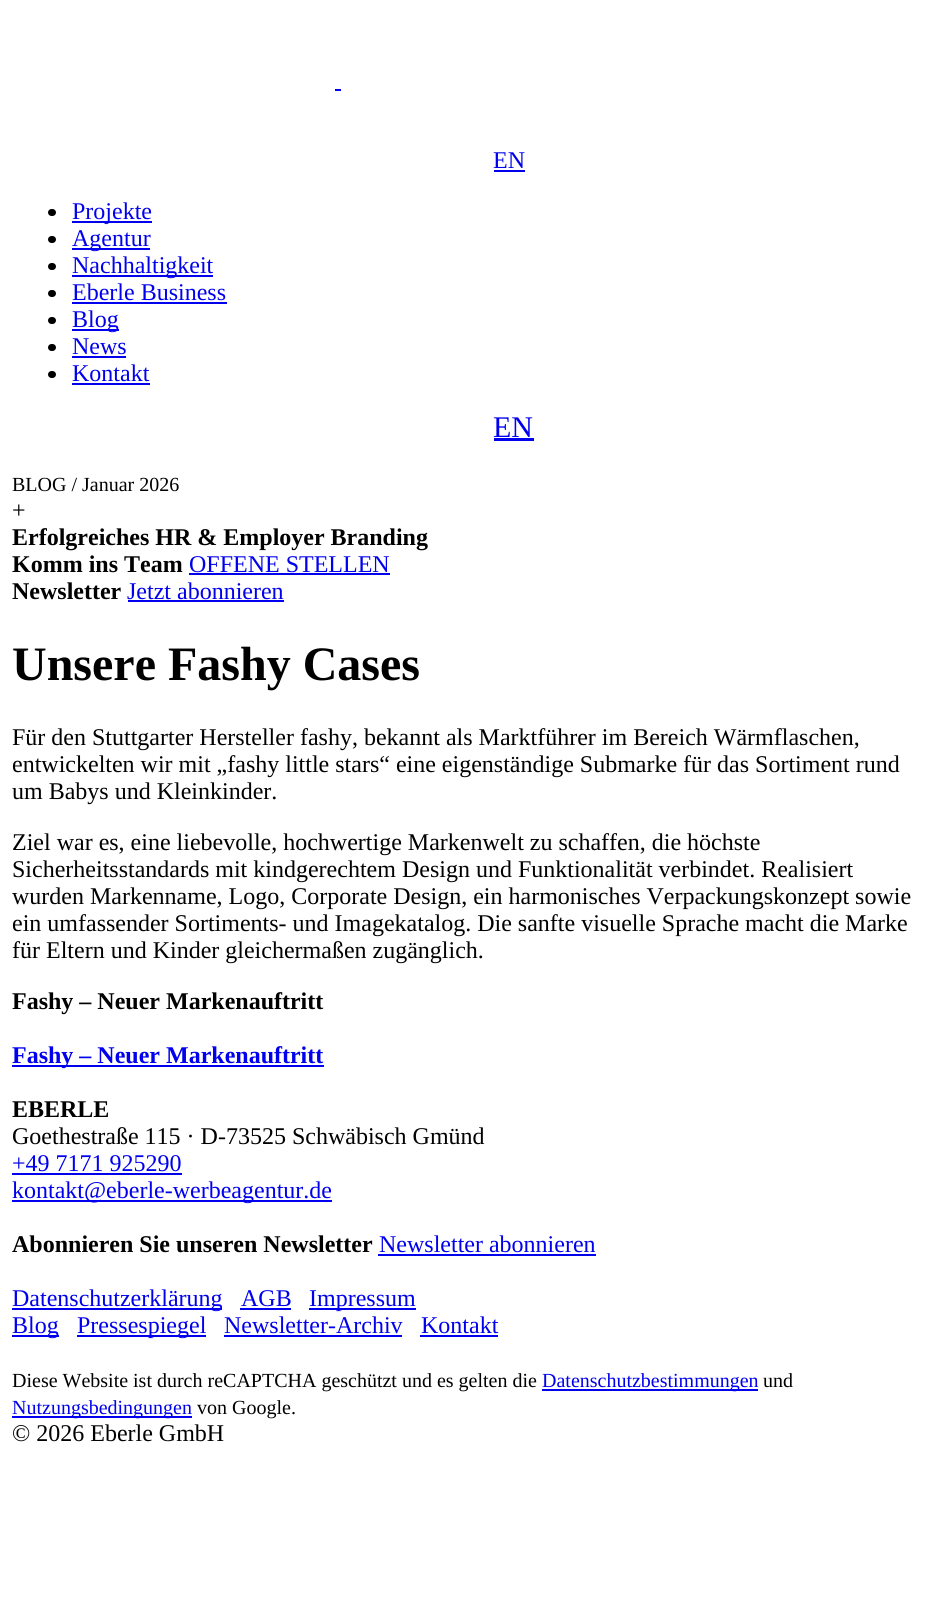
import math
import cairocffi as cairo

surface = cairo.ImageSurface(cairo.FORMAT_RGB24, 930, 1598)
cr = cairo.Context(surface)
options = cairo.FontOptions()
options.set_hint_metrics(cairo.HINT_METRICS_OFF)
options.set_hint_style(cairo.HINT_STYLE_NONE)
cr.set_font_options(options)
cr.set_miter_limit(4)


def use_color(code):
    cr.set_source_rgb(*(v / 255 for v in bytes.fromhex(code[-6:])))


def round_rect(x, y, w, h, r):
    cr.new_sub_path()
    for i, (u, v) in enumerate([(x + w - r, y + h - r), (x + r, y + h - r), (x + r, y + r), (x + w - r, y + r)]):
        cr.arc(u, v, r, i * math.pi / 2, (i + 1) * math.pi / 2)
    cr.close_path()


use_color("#ffffff")
cr.paint()
use_color("#0000ee")
cr.rectangle(335, 89, 6, 2)
cr.fill()
cr.select_font_face("Liberation Serif")
cr.set_font_size(24)
cr.move_to(493, 168)
cr.show_text("EN")
cr.rectangle(494, 170, 31, 2)
cr.fill()
use_color("#000000")
round_rect(48, 209, 8, 7, 3.5)
cr.fill()
use_color("#0000ee")
cr.rectangle(72, 221, 80, 2)
cr.fill()
cr.move_to(72, 219)
cr.show_text("Projekte")
use_color("#000000")
round_rect(48, 236, 8, 7, 3.5)
cr.fill()
use_color("#0000ee")
cr.rectangle(72, 248, 78, 2)
cr.fill()
cr.move_to(72, 246)
cr.show_text("Agentur")
use_color("#000000")
round_rect(48, 263, 8, 7, 3.5)
cr.fill()
use_color("#0000ee")
cr.rectangle(72, 275, 141, 2)
cr.fill()
cr.move_to(72, 273)
cr.show_text("Nachhaltigkeit")
use_color("#000000")
round_rect(48, 290, 8, 7, 3.5)
cr.fill()
use_color("#0000ee")
cr.move_to(72, 300)
cr.show_text("Eberle Business")
cr.rectangle(72, 302, 155, 2)
cr.fill()
use_color("#000000")
round_rect(48, 317, 8, 7, 3.5)
cr.fill()
use_color("#0000ee")
cr.rectangle(72, 329, 47, 2)
cr.fill()
cr.move_to(72, 327)
cr.show_text("Blog")
use_color("#000000")
round_rect(48, 344, 8, 7, 3.5)
cr.fill()
use_color("#0000ee")
cr.move_to(72, 354)
cr.show_text("News")
cr.rectangle(72, 356, 54, 2)
cr.fill()
use_color("#000000")
round_rect(48, 371, 8, 7, 3.5)
cr.fill()
use_color("#0000ee")
cr.move_to(72, 381)
cr.show_text("Kontakt")
cr.rectangle(72, 383, 78, 2)
cr.fill()
cr.set_font_size(30)
cr.move_to(493, 437)
cr.show_text("EN")
cr.rectangle(494, 438, 40, 3)
cr.fill()
cr.set_font_size(20)
use_color("#000000")
cr.move_to(12, 491)
cr.show_text("BLOG / Januar 2026")
cr.set_font_size(24)
cr.move_to(12, 518)
cr.show_text("+")
cr.select_font_face("Liberation Serif", cairo.FONT_SLANT_NORMAL, cairo.FONT_WEIGHT_BOLD)
cr.move_to(12, 545)
cr.show_text("Erfolgreiches HR & Employer Branding")
cr.move_to(12, 572)
cr.show_text("Komm ins Team")
cr.select_font_face("Liberation Serif")
use_color("#0000ee")
cr.move_to(189, 572)
cr.show_text("OFFENE STELLEN")
cr.rectangle(189, 573, 201, 2)
cr.fill()
cr.select_font_face("Liberation Serif", cairo.FONT_SLANT_NORMAL, cairo.FONT_WEIGHT_BOLD)
use_color("#000000")
cr.move_to(12, 599)
cr.show_text("Newsletter")
cr.select_font_face("Liberation Serif")
use_color("#0000ee")
cr.move_to(127, 599)
cr.show_text("Jetzt abonnieren")
cr.rectangle(128, 600, 156, 2)
cr.fill()
cr.select_font_face("Liberation Serif", cairo.FONT_SLANT_NORMAL, cairo.FONT_WEIGHT_BOLD)
cr.set_font_size(48)
use_color("#000000")
cr.move_to(12, 680)
cr.show_text("Unsere Fashy Cases")
cr.select_font_face("Liberation Serif")
cr.set_font_size(24)
cr.move_to(12, 745)
cr.show_text("Für den Stuttgarter Hersteller fashy, bekannt als Marktführer im Bereich Wärmflaschen,")
cr.move_to(12, 772)
cr.show_text("entwickelten wir mit „fashy little stars“ eine eigenständige Submarke für das Sortiment rund")
cr.move_to(12, 799)
cr.show_text("um Babys und Kleinkinder.")
cr.move_to(12, 850)
cr.show_text("Ziel war es, eine liebevolle, hochwertige Markenwelt zu schaffen, die höchste")
cr.move_to(12, 877)
cr.show_text("Sicherheitsstandards mit kindgerechtem Design und Funktionalität verbindet. Realisiert")
cr.move_to(12, 904)
cr.show_text("wurden Markenname, Logo, Corporate Design, ein harmonisches Verpackungskonzept sowie")
cr.move_to(12, 931)
cr.show_text("ein umfassender Sortiments- und Imagekatalog. Die sanfte visuelle Sprache macht die Marke")
cr.move_to(12, 958)
cr.show_text("für Eltern und Kinder gleichermaßen zugänglich.")
cr.select_font_face("Liberation Serif", cairo.FONT_SLANT_NORMAL, cairo.FONT_WEIGHT_BOLD)
cr.move_to(12, 1009)
cr.show_text("Fashy – Neuer Markenauftritt")
use_color("#0000ee")
cr.rectangle(12, 1065, 312, 2)
cr.fill()
cr.move_to(12, 1063)
cr.show_text("Fashy – Neuer Markenauftritt")
use_color("#000000")
cr.move_to(12, 1117)
cr.show_text("EBERLE")
cr.select_font_face("Liberation Serif")
cr.move_to(12, 1144)
cr.show_text("Goethestraße 115 · D-73525 Schwäbisch Gmünd")
use_color("#0000ee")
cr.move_to(12, 1171)
cr.show_text("+49 7171 925290")
cr.rectangle(12, 1173, 170, 2)
cr.fill()
cr.rectangle(12, 1200, 320, 2)
cr.fill()
cr.move_to(12, 1198)
cr.show_text("kontakt@eberle-werbeagentur.de")
cr.select_font_face("Liberation Serif", cairo.FONT_SLANT_NORMAL, cairo.FONT_WEIGHT_BOLD)
use_color("#000000")
cr.move_to(12, 1252)
cr.show_text("Abonnieren Sie unseren Newsletter")
cr.select_font_face("Liberation Serif")
use_color("#0000ee")
cr.move_to(379, 1252)
cr.show_text("Newsletter abonnieren")
cr.rectangle(378, 1254, 218, 2)
cr.fill()
cr.rectangle(12, 1308, 210, 2)
cr.fill()
cr.move_to(12, 1306)
cr.show_text("Datenschutzerklärung")
cr.move_to(241, 1306)
cr.show_text("AGB")
cr.rectangle(240, 1308, 51, 2)
cr.fill()
cr.rectangle(309, 1308, 107, 2)
cr.fill()
cr.move_to(309, 1306)
cr.show_text("Impressum")
cr.rectangle(12, 1335, 47, 2)
cr.fill()
cr.move_to(12, 1333)
cr.show_text("Blog")
cr.rectangle(77, 1335, 129, 2)
cr.fill()
cr.move_to(77, 1333)
cr.show_text("Pressespiegel")
cr.move_to(224, 1333)
cr.show_text("Newsletter-Archiv")
cr.rectangle(224, 1335, 178, 2)
cr.fill()
cr.move_to(421, 1333)
cr.show_text("Kontakt")
cr.rectangle(420, 1335, 78, 2)
cr.fill()
cr.set_font_size(20)
use_color("#000000")
cr.move_to(12, 1387)
cr.show_text("Diese Website ist durch reCAPTCHA geschützt und es gelten die")
use_color("#0000ee")
cr.rectangle(542, 1389, 216, 2)
cr.fill()
cr.move_to(542, 1387)
cr.show_text("Datenschutzbestimmungen")
use_color("#000000")
cr.move_to(763, 1387)
cr.show_text("und")
use_color("#0000ee")
cr.rectangle(12, 1416, 180, 2)
cr.fill()
cr.move_to(12, 1414)
cr.show_text("Nutzungsbedingungen")
use_color("#000000")
cr.move_to(197, 1414)
cr.show_text("von Google.")
cr.set_font_size(24)
cr.move_to(12, 1441)
cr.show_text("© 2026 Eberle GmbH")
surface.write_to_png("result.png")
